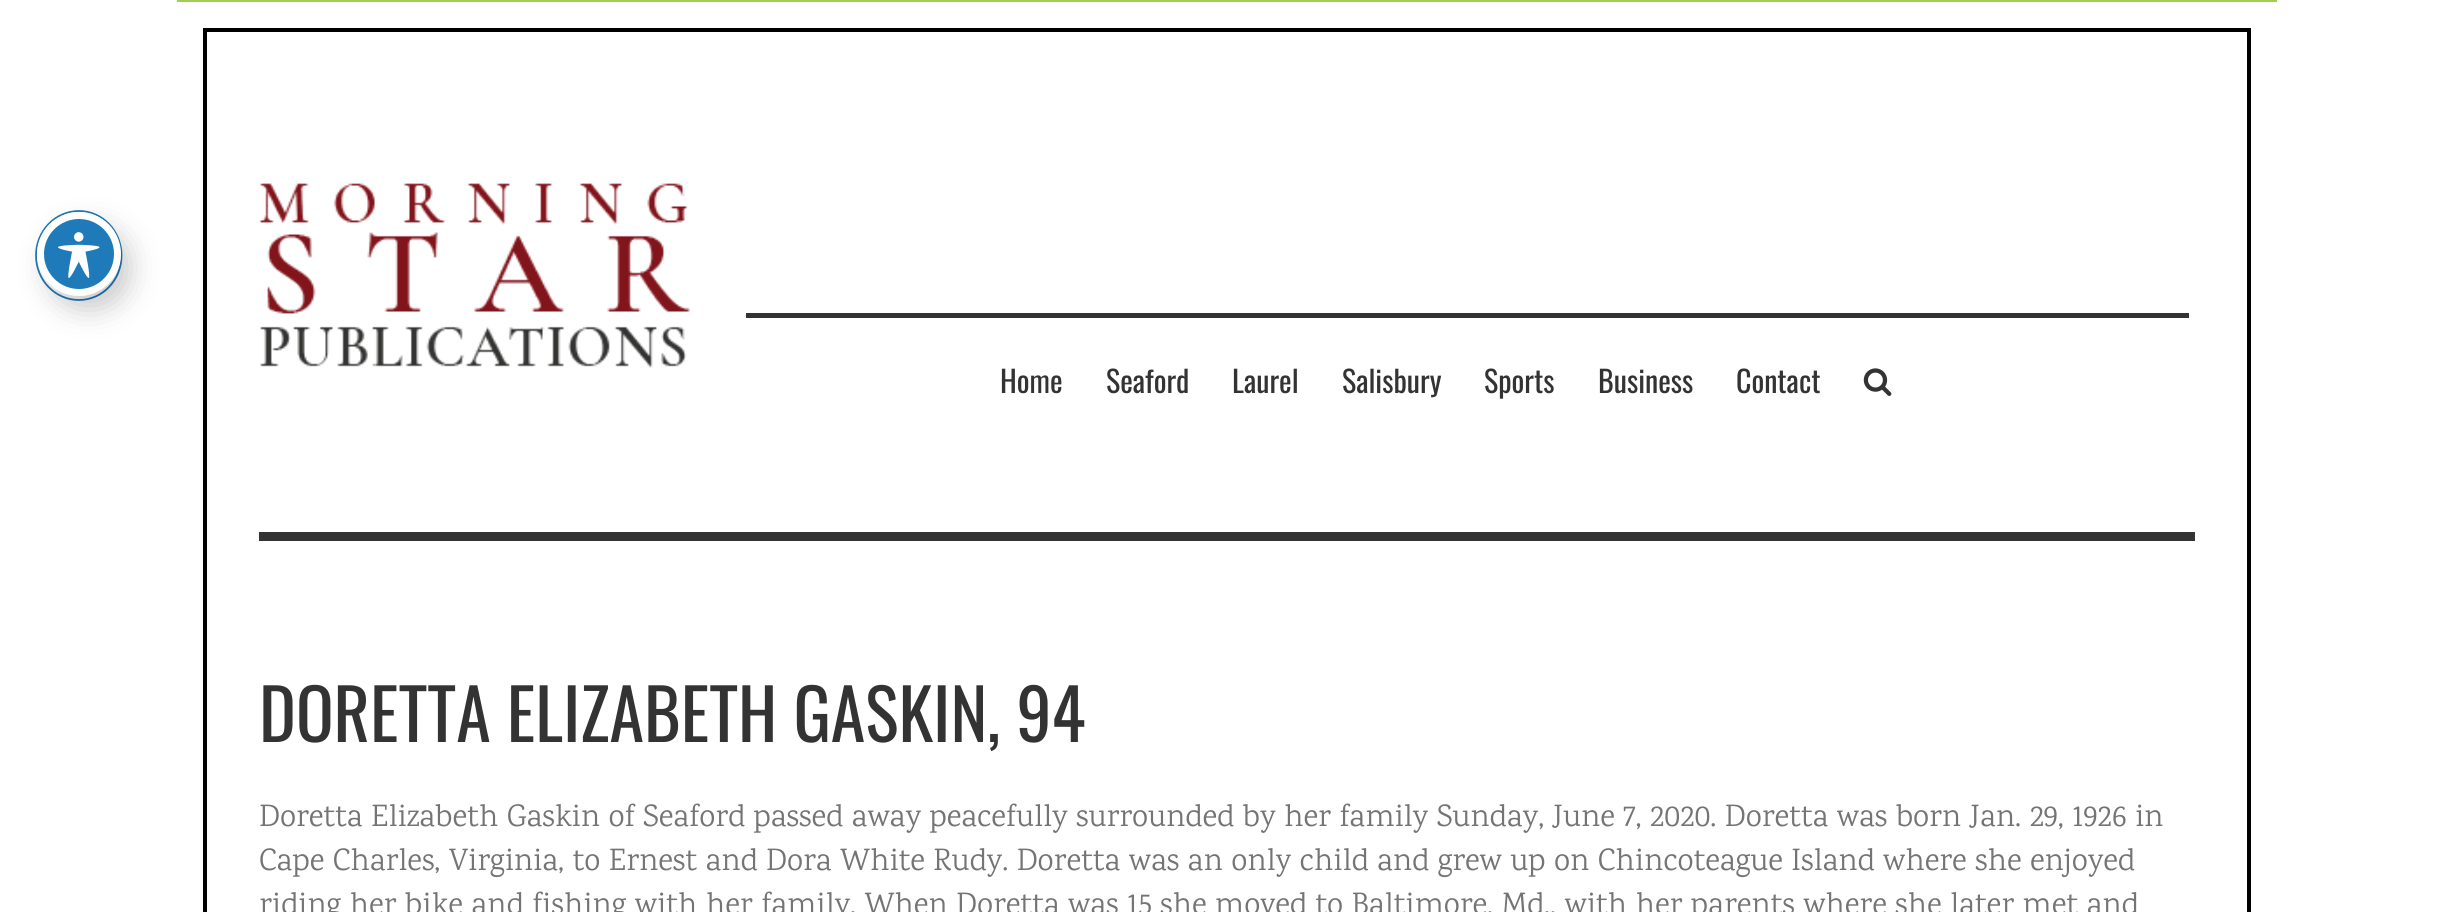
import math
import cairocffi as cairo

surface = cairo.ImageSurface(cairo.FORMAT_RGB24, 2453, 912)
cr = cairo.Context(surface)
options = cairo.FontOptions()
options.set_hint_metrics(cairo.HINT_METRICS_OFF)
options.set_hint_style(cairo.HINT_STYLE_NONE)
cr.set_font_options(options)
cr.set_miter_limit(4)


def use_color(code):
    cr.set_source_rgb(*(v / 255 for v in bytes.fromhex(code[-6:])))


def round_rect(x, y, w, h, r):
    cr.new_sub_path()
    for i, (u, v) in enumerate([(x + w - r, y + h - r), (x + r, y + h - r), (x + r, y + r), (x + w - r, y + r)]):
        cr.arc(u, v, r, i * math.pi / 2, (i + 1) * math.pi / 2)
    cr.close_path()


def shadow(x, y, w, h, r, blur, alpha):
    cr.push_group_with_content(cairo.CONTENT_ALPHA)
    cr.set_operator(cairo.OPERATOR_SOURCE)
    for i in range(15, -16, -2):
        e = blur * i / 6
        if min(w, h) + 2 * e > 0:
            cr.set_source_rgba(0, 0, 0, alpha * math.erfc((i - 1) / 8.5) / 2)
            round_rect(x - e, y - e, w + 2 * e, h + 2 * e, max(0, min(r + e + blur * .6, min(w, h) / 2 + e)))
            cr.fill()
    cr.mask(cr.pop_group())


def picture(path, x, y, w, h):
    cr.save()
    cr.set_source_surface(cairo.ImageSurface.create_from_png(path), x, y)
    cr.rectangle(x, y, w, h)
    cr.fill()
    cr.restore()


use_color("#ffffff")
cr.paint()
cr.new_path()
cr.move_to(79, 211)
cr.curve_to(102.5, 211, 121.5, 231, 121.5, 255.5)
cr.curve_to(121.5, 280, 102.5, 300, 79, 300)
cr.curve_to(55, 300, 36, 280, 36, 255.5)
cr.curve_to(36, 231, 55, 211, 79, 211)
cr.close_path()
use_color("#1e7ab9")
cr.set_line_width(1.8)
cr.stroke()
use_color("#000000")
shadow(47, 226, 84, 84, 42, 14, 0.2)
use_color("#1e7ab9")
cr.arc(79, 254, 38.5, 0, 2 * math.pi)
cr.fill_preserve()
use_color("#ffffff")
cr.set_line_width(7)
cr.stroke()
picture("img1.png", 58, 232, 42, 46)
use_color("#a0ce4e")
cr.rectangle(177, 0, 2100, 2)
cr.fill()
use_color("#000000")
cr.rectangle(203, 28, 2048, 4)
cr.fill()
cr.rectangle(2247, 28, 4, 548)
cr.fill()
cr.rectangle(203, 28, 4, 548)
cr.fill()
use_color("#333333")
cr.rectangle(259, 532, 1936, 9)
cr.fill()
picture("img2.png", 259, 183, 431, 185)
cr.rectangle(746, 313, 1443, 5)
cr.fill()
cr.select_font_face("Oswald")
cr.set_font_size(30)
cr.move_to(1000, 393)
cr.show_text("Home")
cr.move_to(1106, 393)
cr.show_text("Seaford")
cr.move_to(1232, 393)
cr.show_text("Laurel")
cr.move_to(1342, 393)
cr.show_text("Salisbury")
cr.move_to(1484, 393)
cr.show_text("Sports")
cr.move_to(1598, 393)
cr.show_text("Business")
cr.move_to(1736, 393)
cr.show_text("Contact")
picture("img3.png", 1863, 368, 29, 28)
use_color("#000000")
cr.rectangle(2247, 576, 4, 336)
cr.fill()
cr.rectangle(203, 576, 4, 336)
cr.fill()
cr.set_font_size(70)
use_color("#333333")
cr.move_to(259, 742)
cr.show_text("DORETTA ELIZABETH GASKIN, 94")
cr.select_font_face("Karma")
cr.set_font_size(31.5)
use_color("#747474")
cr.move_to(259, 826)
cr.show_text("Doretta Elizabeth Gaskin of Seaford passed away peacefully surrounded by her family Sunday, June 7, 2020. Doretta was born Jan. 29, 1926 in")
cr.move_to(259, 870)
cr.show_text("Cape Charles, Virginia, to Ernest and Dora White Rudy. Doretta was an only child and grew up on Chincoteague Island where she enjoyed")
cr.move_to(259, 914)
cr.show_text("riding her bike and fishing with her family. When Doretta was 15 she moved to Baltimore, Md., with her parents where she later met and")
surface.write_to_png("result.png")
